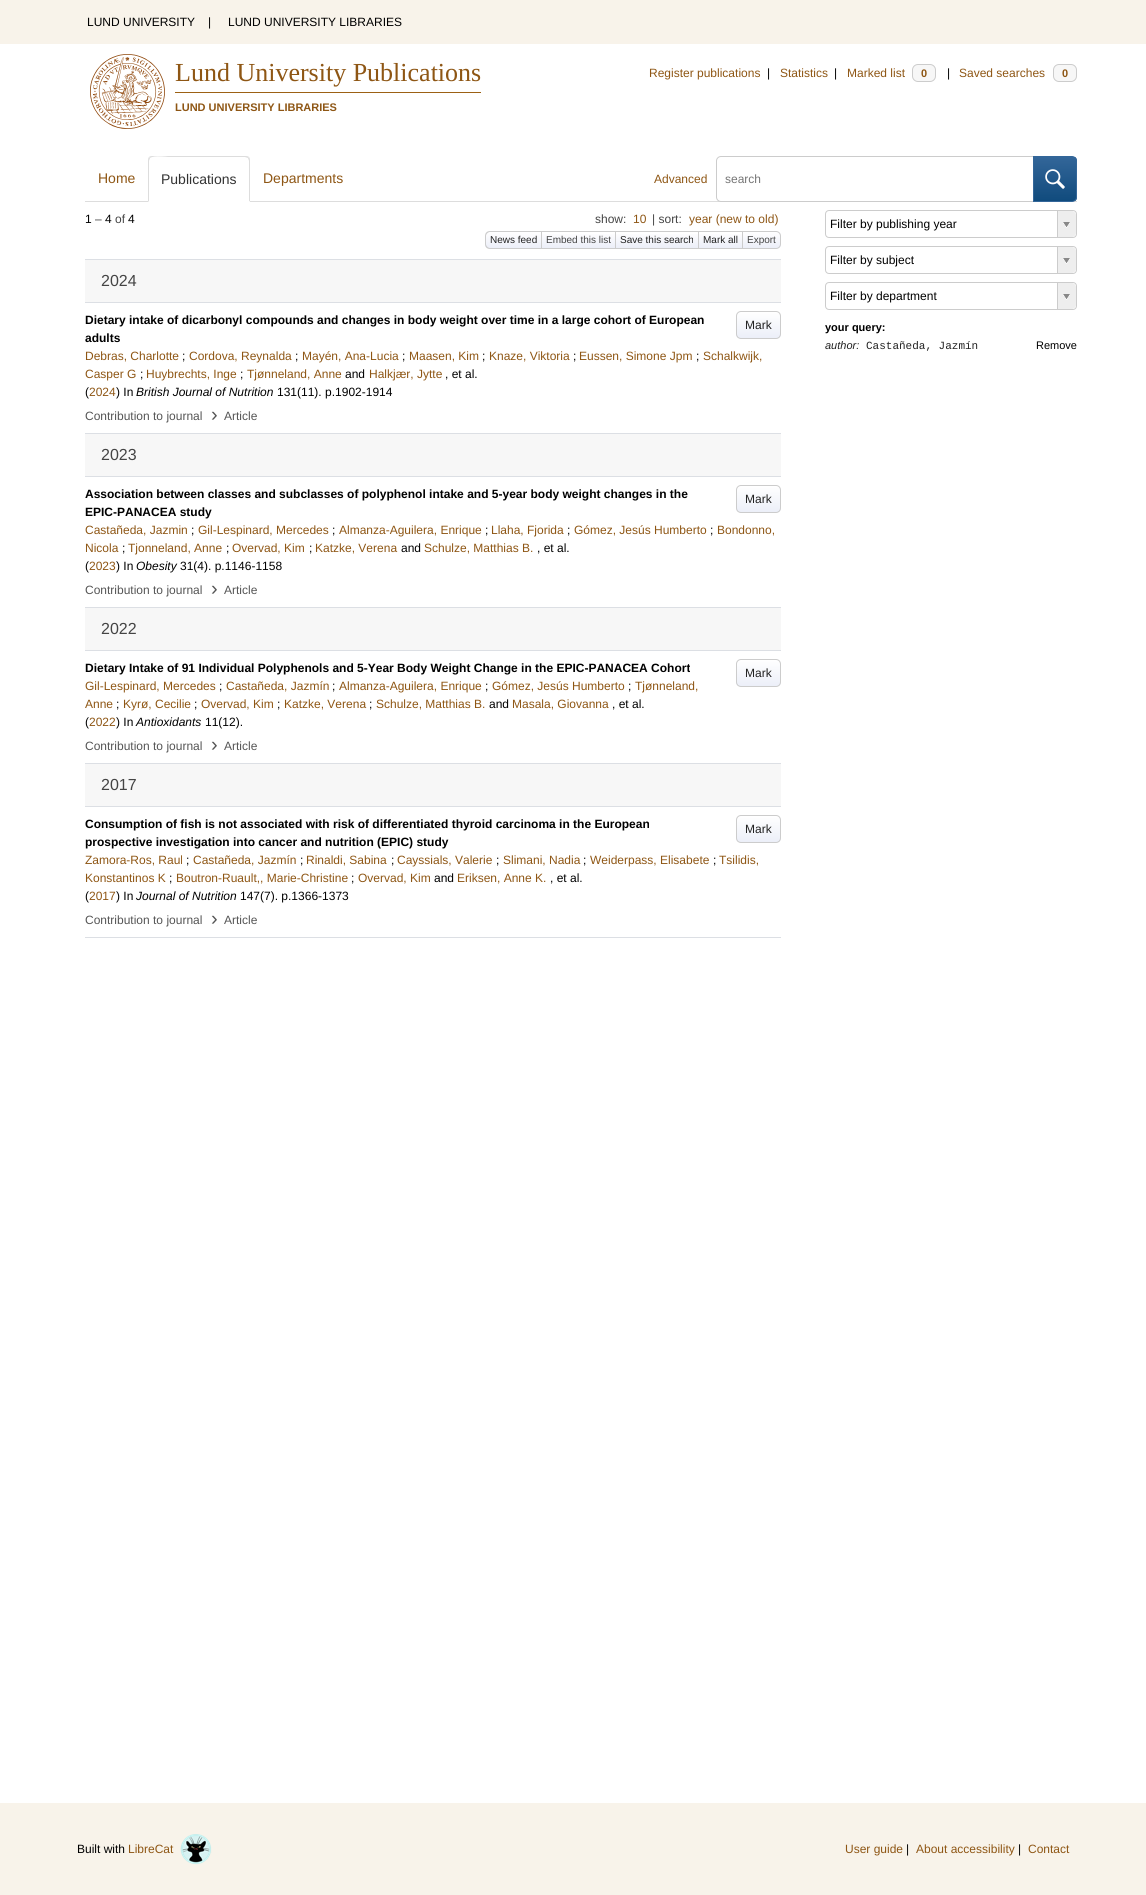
import math
import cairocffi as cairo

surface = cairo.ImageSurface(cairo.FORMAT_RGB24, 1146, 1895)
cr = cairo.Context(surface)
options = cairo.FontOptions()
options.set_hint_metrics(cairo.HINT_METRICS_OFF)
options.set_hint_style(cairo.HINT_STYLE_NONE)
cr.set_font_options(options)
cr.set_miter_limit(4)


def use_color(code):
    cr.set_source_rgb(*(v / 255 for v in bytes.fromhex(code[-6:])))


def round_rect(x, y, w, h, r):
    cr.new_sub_path()
    for i, (u, v) in enumerate([(x + w - r, y + h - r), (x + r, y + h - r), (x + r, y + r), (x + w - r, y + r)]):
        cr.arc(u, v, r, i * math.pi / 2, (i + 1) * math.pi / 2)
    cr.close_path()


def picture(path, x, y, w, h):
    cr.save()
    cr.set_source_surface(cairo.ImageSurface.create_from_png(path), x, y)
    cr.rectangle(x, y, w, h)
    cr.fill()
    cr.restore()


use_color("#ffffff")
cr.paint()
use_color("#f8f3ea")
cr.rectangle(0, 0, 1146, 44)
cr.fill()
cr.select_font_face("Liberation Sans")
cr.set_font_size(12)
use_color("#000000")
cr.move_to(87, 26)
cr.show_text("LUND UNIVERSITY")
cr.move_to(208, 26)
cr.show_text("|")
cr.move_to(228, 26)
cr.show_text("LUND UNIVERSITY LIBRARIES")
picture("img1.png", 90, 54, 75, 75)
cr.select_font_face("Liberation Serif")
cr.set_font_size(26)
use_color("#8e5614")
cr.move_to(175, 81)
cr.show_text("Lund University Publications")
use_color("#9c6114")
cr.rectangle(175, 92, 306, 1)
cr.fill()
cr.select_font_face("Liberation Sans", cairo.FONT_SLANT_NORMAL, cairo.FONT_WEIGHT_BOLD)
cr.set_font_size(11)
use_color("#8e5614")
cr.move_to(175, 111)
cr.show_text("LUND UNIVERSITY LIBRARIES")
cr.select_font_face("Liberation Sans")
cr.set_font_size(12)
cr.move_to(649, 77)
cr.show_text("Register publications")
use_color("#000000")
cr.move_to(767, 77)
cr.show_text("|")
use_color("#8e5614")
cr.move_to(780, 77)
cr.show_text("Statistics")
use_color("#000000")
cr.move_to(834, 77)
cr.show_text("|")
use_color("#8e5614")
cr.move_to(847, 77)
cr.show_text("Marked list")
use_color("#f7f7f7")
round_rect(912.5, 64.5, 23, 17, 5.5)
cr.fill_preserve()
use_color("#cccccc")
cr.set_line_width(1)
cr.stroke()
cr.select_font_face("Liberation Sans", cairo.FONT_SLANT_NORMAL, cairo.FONT_WEIGHT_BOLD)
cr.set_font_size(11)
use_color("#8e5614")
cr.move_to(921, 77)
cr.show_text("0")
cr.select_font_face("Liberation Sans")
cr.set_font_size(12)
use_color("#000000")
cr.move_to(947, 77)
cr.show_text("|")
use_color("#8e5614")
cr.move_to(959, 77)
cr.show_text("Saved searches")
use_color("#f7f7f7")
round_rect(1053.5, 64.5, 23, 17, 5.5)
cr.fill_preserve()
use_color("#cccccc")
cr.stroke()
cr.select_font_face("Liberation Sans", cairo.FONT_SLANT_NORMAL, cairo.FONT_WEIGHT_BOLD)
cr.set_font_size(11)
use_color("#8e5614")
cr.move_to(1062, 77)
cr.show_text("0")
use_color("#dddddd")
cr.rectangle(85, 201, 992, 1)
cr.fill()
cr.select_font_face("Liberation Sans")
cr.set_font_size(14)
use_color("#8e5614")
cr.move_to(98, 183)
cr.show_text("Home")
use_color("#ffffff")
cr.new_path()
cr.move_to(153, 156)
cr.line_to(245, 156)
cr.curve_to(248, 156, 250, 158, 250, 161)
cr.line_to(250, 202)
cr.line_to(148, 202)
cr.line_to(148, 161)
cr.curve_to(148, 158, 150, 156, 153, 156)
cr.close_path()
cr.fill()
use_color("#dddddd")
cr.new_path()
cr.move_to(153, 156)
cr.curve_to(152, 156, 150, 156, 149, 157)
cr.line_to(150, 158)
cr.curve_to(154, 155, 168, 157, 168, 157)
cr.line_to(245, 157)
cr.line_to(248, 158)
cr.line_to(249, 157)
cr.curve_to(248, 156, 246, 156, 245, 156)
cr.close_path()
cr.fill()
cr.new_path()
cr.move_to(250, 202)
cr.line_to(250, 161)
cr.curve_to(250, 160, 250, 158, 249, 157)
cr.line_to(248, 158)
cr.curve_to(248, 159, 249, 160, 249, 161)
cr.line_to(249, 201)
cr.close_path()
cr.fill()
use_color("#ffffff")
cr.new_path()
cr.move_to(250, 202)
cr.line_to(249, 201)
cr.line_to(149, 201)
cr.line_to(148, 202)
cr.close_path()
cr.fill()
use_color("#dddddd")
cr.new_path()
cr.move_to(148, 202)
cr.line_to(149, 201)
cr.line_to(149, 161)
cr.curve_to(149, 160, 150, 159, 150, 158)
cr.line_to(149, 157)
cr.curve_to(148, 158, 148, 160, 148, 161)
cr.close_path()
cr.fill()
use_color("#333333")
cr.move_to(161, 184)
cr.show_text("Publications")
use_color("#8e5614")
cr.move_to(263, 183)
cr.show_text("Departments")
cr.set_font_size(12)
cr.move_to(654, 183)
cr.show_text("Advanced")
use_color("#ffffff")
cr.new_path()
cr.move_to(721, 156.5)
cr.line_to(1033.5, 156.5)
cr.line_to(1033.5, 201.5)
cr.line_to(721, 201.5)
cr.curve_to(718.5, 201.5, 716.5, 199.5, 716.5, 197)
cr.line_to(716.5, 161)
cr.curve_to(716.5, 158.5, 718.5, 156.5, 721, 156.5)
cr.close_path()
cr.fill_preserve()
use_color("#cccccc")
cr.stroke()
use_color("#757575")
cr.move_to(725, 183)
cr.show_text("search")
cr.save()
cr.new_path()
cr.move_to(1033, 156)
cr.line_to(1072, 156)
cr.curve_to(1075, 156, 1077, 158, 1077, 161)
cr.line_to(1077, 197)
cr.curve_to(1077, 200, 1075, 202, 1072, 202)
cr.line_to(1033, 202)
cr.close_path()
cr.clip()
gradient = cairo.LinearGradient(1055, 157, 1055, 201)
gradient.add_color_stop_rgba(0, 0.2, 0.4, 0.6, 1)
gradient.add_color_stop_rgba(1, 0.063, 0.294, 0.49, 1)
cr.set_source(gradient)
cr.rectangle(1034, 157, 43, 44)
cr.fill()
cr.restore()
cr.new_path()
cr.move_to(1033.5, 156.5)
cr.line_to(1072, 156.5)
cr.curve_to(1074.5, 156.5, 1076.5, 158.5, 1076.5, 161)
cr.line_to(1076.5, 197)
cr.curve_to(1076.5, 199.5, 1074.5, 201.5, 1072, 201.5)
cr.line_to(1033.5, 201.5)
cr.close_path()
use_color("#336699")
cr.stroke()
picture("img2.png", 1045, 169, 20, 20)
use_color("#000000")
cr.move_to(85, 223)
cr.show_text("1")
use_color("#444444")
cr.move_to(95, 223)
cr.show_text("–")
use_color("#000000")
cr.move_to(105, 223)
cr.show_text("4")
use_color("#444444")
cr.move_to(115, 223)
cr.show_text("of")
use_color("#000000")
cr.move_to(128, 223)
cr.show_text("4")
use_color("#444444")
cr.move_to(595, 223)
cr.show_text("show:")
use_color("#8e5614")
cr.move_to(633, 223)
cr.show_text("10")
use_color("#444444")
cr.move_to(652, 223)
cr.show_text("| sort:")
use_color("#8e5614")
cr.move_to(689, 223)
cr.show_text("year (new to old)")
cr.save()
cr.new_path()
cr.move_to(490, 231)
cr.line_to(541, 231)
cr.line_to(541, 249)
cr.line_to(490, 249)
cr.curve_to(487, 249, 485, 247, 485, 244)
cr.line_to(485, 236)
cr.curve_to(485, 233, 487, 231, 490, 231)
cr.close_path()
cr.clip()
gradient = cairo.LinearGradient(514, 232, 514, 248)
gradient.add_color_stop_rgba(0, 1, 1, 1, 1)
gradient.add_color_stop_rgba(1, 0.925, 0.937, 0.973, 1)
cr.set_source(gradient)
cr.rectangle(485, 232, 56, 16)
cr.fill()
cr.restore()
use_color("#cccccc")
cr.set_fill_rule(cairo.FILL_RULE_EVEN_ODD)
cr.new_path()
cr.move_to(490, 231)
cr.line_to(541, 231)
cr.line_to(541, 249)
cr.line_to(490, 249)
cr.curve_to(487, 249, 485, 247, 485, 244)
cr.line_to(485, 236)
cr.curve_to(485, 233, 487, 231, 490, 231)
cr.close_path()
cr.move_to(490, 232)
cr.line_to(541, 232)
cr.line_to(541, 248)
cr.line_to(490, 248)
cr.curve_to(488, 248, 486, 246, 486, 244)
cr.line_to(486, 236)
cr.curve_to(486, 234, 488, 232, 490, 232)
cr.close_path()
cr.fill()
cr.set_font_size(10)
use_color("#222222")
cr.move_to(490, 243)
cr.show_text("News feed")
gradient = cairo.LinearGradient(579, 232, 579, 248)
gradient.add_color_stop_rgba(0, 1, 1, 1, 1)
gradient.add_color_stop_rgba(1, 0.925, 0.937, 0.973, 1)
cr.set_source(gradient)
cr.rectangle(542, 234, 73, 14)
cr.fill()
use_color("#cccccc")
cr.rectangle(541, 231, 201, 1)
cr.fill()
cr.rectangle(541, 248, 201, 1)
cr.fill()
cr.rectangle(541, 231, 1, 18)
cr.fill()
use_color("#444444")
cr.move_to(546, 243)
cr.show_text("Embed this list")
gradient = cairo.LinearGradient(657, 232, 657, 248)
gradient.add_color_stop_rgba(0, 1, 1, 1, 1)
gradient.add_color_stop_rgba(1, 0.925, 0.937, 0.973, 1)
cr.set_source(gradient)
cr.rectangle(616, 234, 82, 14)
cr.fill()
use_color("#cccccc")
cr.rectangle(615, 231, 1, 18)
cr.fill()
use_color("#222222")
cr.move_to(620, 243)
cr.show_text("Save this search")
gradient = cairo.LinearGradient(721, 232, 721, 248)
gradient.add_color_stop_rgba(0, 1, 1, 1, 1)
gradient.add_color_stop_rgba(1, 0.925, 0.937, 0.973, 1)
cr.set_source(gradient)
cr.rectangle(699, 234, 43, 14)
cr.fill()
use_color("#cccccc")
cr.rectangle(698, 231, 1, 18)
cr.fill()
use_color("#222222")
cr.move_to(703, 243)
cr.show_text("Mark all")
cr.save()
cr.set_fill_rule(cairo.FILL_RULE_WINDING)
cr.new_path()
cr.move_to(742, 231)
cr.line_to(776, 231)
cr.curve_to(779, 231, 781, 233, 781, 236)
cr.line_to(781, 244)
cr.curve_to(781, 247, 779, 249, 776, 249)
cr.line_to(742, 249)
cr.close_path()
cr.clip()
gradient = cairo.LinearGradient(762, 232, 762, 248)
gradient.add_color_stop_rgba(0, 1, 1, 1, 1)
gradient.add_color_stop_rgba(1, 0.925, 0.937, 0.973, 1)
cr.set_source(gradient)
cr.rectangle(743, 232, 38, 16)
cr.fill()
cr.restore()
cr.new_path()
cr.move_to(742.5, 231.5)
cr.line_to(776, 231.5)
cr.curve_to(778.5, 231.5, 780.5, 233.5, 780.5, 236)
cr.line_to(780.5, 244)
cr.curve_to(780.5, 246.5, 778.5, 248.5, 776, 248.5)
cr.line_to(742.5, 248.5)
cr.close_path()
use_color("#cccccc")
cr.stroke()
use_color("#444444")
cr.move_to(747, 243)
cr.show_text("Export")
use_color("#dcdfe4")
cr.rectangle(85, 259, 696, 1)
cr.fill()
use_color("#f7f7f7")
cr.rectangle(85, 260, 696, 42)
cr.fill()
use_color("#dcdfe4")
cr.rectangle(85, 302, 696, 1)
cr.fill()
cr.set_font_size(16)
use_color("#444444")
cr.move_to(101, 286)
cr.show_text("2024")
use_color("#dcdfe4")
cr.rectangle(85, 433, 696, 1)
cr.fill()
cr.select_font_face("Liberation Sans", cairo.FONT_SLANT_NORMAL, cairo.FONT_WEIGHT_BOLD)
cr.set_font_size(12)
use_color("#000000")
cr.move_to(85, 324)
cr.show_text("Dietary intake of dicarbonyl compounds and changes in body weight over time in a large cohort of European")
cr.move_to(85, 342)
cr.show_text("adults")
cr.save()
cr.set_fill_rule(cairo.FILL_RULE_WINDING)
round_rect(736, 311, 45, 28, 5)
cr.clip()
gradient = cairo.LinearGradient(759, 312, 759, 338)
gradient.add_color_stop_rgba(0, 1, 1, 1, 1)
gradient.add_color_stop_rgba(1, 0.925, 0.937, 0.973, 1)
cr.set_source(gradient)
cr.rectangle(736, 312, 45, 26)
cr.fill()
cr.restore()
round_rect(736.5, 311.5, 44, 27, 4.5)
use_color("#cccccc")
cr.stroke()
cr.select_font_face("Liberation Sans")
use_color("#222222")
cr.move_to(745, 329)
cr.show_text("Mark")
use_color("#8e5614")
cr.move_to(85, 360)
cr.show_text("Debras, Charlotte")
use_color("#000000")
cr.move_to(182, 360)
cr.show_text(";")
use_color("#8e5614")
cr.move_to(189, 360)
cr.show_text("Cordova, Reynalda")
use_color("#000000")
cr.move_to(295, 360)
cr.show_text(";")
use_color("#8e5614")
cr.move_to(302, 360)
cr.show_text("Mayén, Ana-Lucia")
use_color("#000000")
cr.move_to(402, 360)
cr.show_text(";")
use_color("#8e5614")
cr.move_to(409, 360)
cr.show_text("Maasen, Kim")
use_color("#000000")
cr.move_to(482, 360)
cr.show_text(";")
use_color("#8e5614")
cr.move_to(489, 360)
cr.show_text("Knaze, Viktoria")
use_color("#000000")
cr.move_to(573, 360)
cr.show_text(";")
use_color("#8e5614")
cr.move_to(579, 360)
cr.show_text("Eussen, Simone Jpm")
use_color("#000000")
cr.move_to(696, 360)
cr.show_text(";")
use_color("#8e5614")
cr.move_to(703, 360)
cr.show_text("Schalkwijk,")
cr.move_to(85, 378)
cr.show_text("Casper G")
use_color("#000000")
cr.move_to(140, 378)
cr.show_text(";")
use_color("#8e5614")
cr.move_to(146, 378)
cr.show_text("Huybrechts, Inge")
use_color("#000000")
cr.move_to(240, 378)
cr.show_text(";")
use_color("#8e5614")
cr.move_to(247, 378)
cr.show_text("Tjønneland, Anne")
use_color("#000000")
cr.move_to(345, 378)
cr.show_text("and")
use_color("#8e5614")
cr.move_to(369, 378)
cr.show_text("Halkjær, Jytte")
use_color("#000000")
cr.move_to(445, 378)
cr.show_text(", et al.")
cr.move_to(85, 396)
cr.show_text("(")
use_color("#8e5614")
cr.move_to(89, 396)
cr.show_text("2024")
use_color("#000000")
cr.move_to(116, 396)
cr.show_text(") In")
cr.select_font_face("Liberation Sans", cairo.FONT_SLANT_ITALIC)
cr.move_to(136, 396)
cr.show_text("British Journal of Nutrition")
cr.select_font_face("Liberation Sans")
cr.move_to(277, 396)
cr.show_text("131(11). p.1902-1914")
use_color("#555555")
cr.move_to(85, 420)
cr.show_text("Contribution to journal")
cr.set_font_size(20)
cr.move_to(211, 421)
cr.show_text("›")
cr.set_font_size(12)
cr.move_to(224, 420)
cr.show_text("Article")
use_color("#f7f7f7")
cr.rectangle(85, 434, 696, 42)
cr.fill()
use_color("#dcdfe4")
cr.rectangle(85, 476, 696, 1)
cr.fill()
cr.set_font_size(16)
use_color("#444444")
cr.move_to(101, 460)
cr.show_text("2023")
use_color("#dcdfe4")
cr.rectangle(85, 607, 696, 1)
cr.fill()
cr.select_font_face("Liberation Sans", cairo.FONT_SLANT_NORMAL, cairo.FONT_WEIGHT_BOLD)
cr.set_font_size(12)
use_color("#000000")
cr.move_to(85, 498)
cr.show_text("Association between classes and subclasses of polyphenol intake and 5-year body weight changes in the")
cr.move_to(85, 516)
cr.show_text("EPIC-PANACEA study")
cr.save()
cr.set_fill_rule(cairo.FILL_RULE_WINDING)
round_rect(736, 485, 45, 28, 5)
cr.clip()
gradient = cairo.LinearGradient(759, 486, 759, 512)
gradient.add_color_stop_rgba(0, 1, 1, 1, 1)
gradient.add_color_stop_rgba(1, 0.925, 0.937, 0.973, 1)
cr.set_source(gradient)
cr.rectangle(736, 486, 45, 26)
cr.fill()
cr.restore()
round_rect(736.5, 485.5, 44, 27, 4.5)
use_color("#cccccc")
cr.stroke()
cr.select_font_face("Liberation Sans")
use_color("#222222")
cr.move_to(745, 503)
cr.show_text("Mark")
use_color("#8e5614")
cr.move_to(85, 534)
cr.show_text("Castañeda, Jazmin")
use_color("#000000")
cr.move_to(191, 534)
cr.show_text(";")
use_color("#8e5614")
cr.move_to(198, 534)
cr.show_text("Gil-Lespinard, Mercedes")
use_color("#000000")
cr.move_to(332, 534)
cr.show_text(";")
use_color("#8e5614")
cr.move_to(339, 534)
cr.show_text("Almanza-Aguilera, Enrique")
use_color("#000000")
cr.move_to(485, 534)
cr.show_text(";")
use_color("#8e5614")
cr.move_to(491, 534)
cr.show_text("Llaha, Fjorida")
use_color("#000000")
cr.move_to(567, 534)
cr.show_text(";")
use_color("#8e5614")
cr.move_to(574, 534)
cr.show_text("Gómez, Jesús Humberto")
use_color("#000000")
cr.move_to(710, 534)
cr.show_text(";")
use_color("#8e5614")
cr.move_to(717, 534)
cr.show_text("Bondonno,")
cr.move_to(85, 552)
cr.show_text("Nicola")
use_color("#000000")
cr.move_to(122, 552)
cr.show_text(";")
use_color("#8e5614")
cr.move_to(128, 552)
cr.show_text("Tjonneland, Anne")
use_color("#000000")
cr.move_to(226, 552)
cr.show_text(";")
use_color("#8e5614")
cr.move_to(232, 552)
cr.show_text("Overvad, Kim")
use_color("#000000")
cr.move_to(309, 552)
cr.show_text(";")
use_color("#8e5614")
cr.move_to(315, 552)
cr.show_text("Katzke, Verena")
use_color("#000000")
cr.move_to(401, 552)
cr.show_text("and")
use_color("#8e5614")
cr.move_to(424, 552)
cr.show_text("Schulze, Matthias B.")
use_color("#000000")
cr.move_to(537, 552)
cr.show_text(", et al.")
cr.move_to(85, 570)
cr.show_text("(")
use_color("#8e5614")
cr.move_to(89, 570)
cr.show_text("2023")
use_color("#000000")
cr.move_to(116, 570)
cr.show_text(") In")
cr.select_font_face("Liberation Sans", cairo.FONT_SLANT_ITALIC)
cr.move_to(136, 570)
cr.show_text("Obesity")
cr.select_font_face("Liberation Sans")
cr.move_to(180, 570)
cr.show_text("31(4). p.1146-1158")
use_color("#555555")
cr.move_to(85, 594)
cr.show_text("Contribution to journal")
cr.set_font_size(20)
cr.move_to(211, 595)
cr.show_text("›")
cr.set_font_size(12)
cr.move_to(224, 594)
cr.show_text("Article")
use_color("#f7f7f7")
cr.rectangle(85, 608, 696, 42)
cr.fill()
use_color("#dcdfe4")
cr.rectangle(85, 650, 696, 1)
cr.fill()
cr.set_font_size(16)
use_color("#444444")
cr.move_to(101, 634)
cr.show_text("2022")
use_color("#dcdfe4")
cr.rectangle(85, 763, 696, 1)
cr.fill()
cr.select_font_face("Liberation Sans", cairo.FONT_SLANT_NORMAL, cairo.FONT_WEIGHT_BOLD)
cr.set_font_size(12)
use_color("#000000")
cr.move_to(85, 672)
cr.show_text("Dietary Intake of 91 Individual Polyphenols and 5-Year Body Weight Change in the EPIC-PANACEA Cohort")
cr.save()
cr.set_fill_rule(cairo.FILL_RULE_WINDING)
round_rect(736, 659, 45, 28, 5)
cr.clip()
gradient = cairo.LinearGradient(759, 660, 759, 686)
gradient.add_color_stop_rgba(0, 1, 1, 1, 1)
gradient.add_color_stop_rgba(1, 0.925, 0.937, 0.973, 1)
cr.set_source(gradient)
cr.rectangle(736, 660, 45, 26)
cr.fill()
cr.restore()
round_rect(736.5, 659.5, 44, 27, 4.5)
use_color("#cccccc")
cr.stroke()
cr.select_font_face("Liberation Sans")
use_color("#222222")
cr.move_to(745, 677)
cr.show_text("Mark")
use_color("#8e5614")
cr.move_to(85, 690)
cr.show_text("Gil-Lespinard, Mercedes")
use_color("#000000")
cr.move_to(219, 690)
cr.show_text(";")
use_color("#8e5614")
cr.move_to(226, 690)
cr.show_text("Castañeda, Jazmín")
use_color("#000000")
cr.move_to(332, 690)
cr.show_text(";")
use_color("#8e5614")
cr.move_to(339, 690)
cr.show_text("Almanza-Aguilera, Enrique")
use_color("#000000")
cr.move_to(485, 690)
cr.show_text(";")
use_color("#8e5614")
cr.move_to(492, 690)
cr.show_text("Gómez, Jesús Humberto")
use_color("#000000")
cr.move_to(628, 690)
cr.show_text(";")
use_color("#8e5614")
cr.move_to(635, 690)
cr.show_text("Tjønneland,")
cr.move_to(85, 708)
cr.show_text("Anne")
use_color("#000000")
cr.move_to(116, 708)
cr.show_text(";")
use_color("#8e5614")
cr.move_to(123, 708)
cr.show_text("Kyrø, Cecilie")
use_color("#000000")
cr.move_to(194, 708)
cr.show_text(";")
use_color("#8e5614")
cr.move_to(201, 708)
cr.show_text("Overvad, Kim")
use_color("#000000")
cr.move_to(277, 708)
cr.show_text(";")
use_color("#8e5614")
cr.move_to(284, 708)
cr.show_text("Katzke, Verena")
use_color("#000000")
cr.move_to(369, 708)
cr.show_text(";")
use_color("#8e5614")
cr.move_to(376, 708)
cr.show_text("Schulze, Matthias B.")
use_color("#000000")
cr.move_to(489, 708)
cr.show_text("and")
use_color("#8e5614")
cr.move_to(512, 708)
cr.show_text("Masala, Giovanna")
use_color("#000000")
cr.move_to(612, 708)
cr.show_text(", et al.")
cr.move_to(85, 726)
cr.show_text("(")
use_color("#8e5614")
cr.move_to(89, 726)
cr.show_text("2022")
use_color("#000000")
cr.move_to(116, 726)
cr.show_text(") In")
cr.select_font_face("Liberation Sans", cairo.FONT_SLANT_ITALIC)
cr.move_to(136, 726)
cr.show_text("Antioxidants")
cr.select_font_face("Liberation Sans")
cr.move_to(205, 726)
cr.show_text("11(12).")
use_color("#555555")
cr.move_to(85, 750)
cr.show_text("Contribution to journal")
cr.set_font_size(20)
cr.move_to(211, 751)
cr.show_text("›")
cr.set_font_size(12)
cr.move_to(224, 750)
cr.show_text("Article")
use_color("#f7f7f7")
cr.rectangle(85, 764, 696, 42)
cr.fill()
use_color("#dcdfe4")
cr.rectangle(85, 806, 696, 1)
cr.fill()
cr.set_font_size(16)
use_color("#444444")
cr.move_to(101, 790)
cr.show_text("2017")
use_color("#dcdfe4")
cr.rectangle(85, 937, 696, 1)
cr.fill()
cr.select_font_face("Liberation Sans", cairo.FONT_SLANT_NORMAL, cairo.FONT_WEIGHT_BOLD)
cr.set_font_size(12)
use_color("#000000")
cr.move_to(85, 828)
cr.show_text("Consumption of fish is not associated with risk of differentiated thyroid carcinoma in the European")
cr.move_to(85, 846)
cr.show_text("prospective investigation into cancer and nutrition (EPIC) study")
cr.save()
cr.set_fill_rule(cairo.FILL_RULE_WINDING)
round_rect(736, 815, 45, 28, 5)
cr.clip()
gradient = cairo.LinearGradient(759, 816, 759, 842)
gradient.add_color_stop_rgba(0, 1, 1, 1, 1)
gradient.add_color_stop_rgba(1, 0.925, 0.937, 0.973, 1)
cr.set_source(gradient)
cr.rectangle(736, 816, 45, 26)
cr.fill()
cr.restore()
round_rect(736.5, 815.5, 44, 27, 4.5)
use_color("#cccccc")
cr.stroke()
cr.select_font_face("Liberation Sans")
use_color("#222222")
cr.move_to(745, 833)
cr.show_text("Mark")
use_color("#8e5614")
cr.move_to(85, 864)
cr.show_text("Zamora-Ros, Raul")
use_color("#000000")
cr.move_to(186, 864)
cr.show_text(";")
use_color("#8e5614")
cr.move_to(193, 864)
cr.show_text("Castañeda, Jazmín")
use_color("#000000")
cr.move_to(300, 864)
cr.show_text(";")
use_color("#8e5614")
cr.move_to(306, 864)
cr.show_text("Rinaldi, Sabina")
use_color("#000000")
cr.move_to(391, 864)
cr.show_text(";")
use_color("#8e5614")
cr.move_to(397, 864)
cr.show_text("Cayssials, Valerie")
use_color("#000000")
cr.move_to(496, 864)
cr.show_text(";")
use_color("#8e5614")
cr.move_to(503, 864)
cr.show_text("Slimani, Nadia")
use_color("#000000")
cr.move_to(583, 864)
cr.show_text(";")
use_color("#8e5614")
cr.move_to(590, 864)
cr.show_text("Weiderpass, Elisabete")
use_color("#000000")
cr.move_to(713, 864)
cr.show_text(";")
use_color("#8e5614")
cr.move_to(719, 864)
cr.show_text("Tsilidis,")
cr.move_to(85, 882)
cr.show_text("Konstantinos K")
use_color("#000000")
cr.move_to(169, 882)
cr.show_text(";")
use_color("#8e5614")
cr.move_to(176, 882)
cr.show_text("Boutron-Ruault,, Marie-Christine")
use_color("#000000")
cr.move_to(351, 882)
cr.show_text(";")
use_color("#8e5614")
cr.move_to(358, 882)
cr.show_text("Overvad, Kim")
use_color("#000000")
cr.move_to(434, 882)
cr.show_text("and")
use_color("#8e5614")
cr.move_to(457, 882)
cr.show_text("Eriksen, Anne K.")
use_color("#000000")
cr.move_to(550, 882)
cr.show_text(", et al.")
cr.move_to(85, 900)
cr.show_text("(")
use_color("#8e5614")
cr.move_to(89, 900)
cr.show_text("2017")
use_color("#000000")
cr.move_to(116, 900)
cr.show_text(") In")
cr.select_font_face("Liberation Sans", cairo.FONT_SLANT_ITALIC)
cr.move_to(136, 900)
cr.show_text("Journal of Nutrition")
cr.select_font_face("Liberation Sans")
cr.move_to(240, 900)
cr.show_text("147(7). p.1366-1373")
use_color("#555555")
cr.move_to(85, 924)
cr.show_text("Contribution to journal")
cr.set_font_size(20)
cr.move_to(211, 925)
cr.show_text("›")
cr.set_font_size(12)
cr.move_to(224, 924)
cr.show_text("Article")
round_rect(825.5, 210.5, 251, 27, 3.5)
use_color("#cccccc")
cr.stroke()
use_color("#000000")
cr.move_to(830, 228)
cr.show_text("Filter by publishing year")
cr.save()
cr.set_fill_rule(cairo.FILL_RULE_WINDING)
round_rect(826, 211, 250, 26, 3)
cr.clip()
use_color("#eeeeee")
cr.new_path()
cr.move_to(1057, 211)
cr.line_to(1072, 211)
cr.curve_to(1074, 211, 1076, 213, 1076, 215)
cr.line_to(1076, 233)
cr.curve_to(1076, 235, 1074, 237, 1072, 237)
cr.line_to(1057, 237)
cr.close_path()
cr.fill()
cr.restore()
use_color("#cccccc")
cr.rectangle(1057, 211, 1, 26)
cr.fill()
picture("img3.png", 1063, 222, 7, 6)
round_rect(825.5, 246.5, 251, 27, 3.5)
cr.stroke()
use_color("#000000")
cr.move_to(830, 264)
cr.show_text("Filter by subject")
cr.save()
cr.set_fill_rule(cairo.FILL_RULE_WINDING)
round_rect(826, 247, 250, 26, 3)
cr.clip()
use_color("#eeeeee")
cr.new_path()
cr.move_to(1057, 247)
cr.line_to(1072, 247)
cr.curve_to(1074, 247, 1076, 249, 1076, 251)
cr.line_to(1076, 269)
cr.curve_to(1076, 271, 1074, 273, 1072, 273)
cr.line_to(1057, 273)
cr.close_path()
cr.fill()
cr.restore()
use_color("#cccccc")
cr.rectangle(1057, 247, 1, 26)
cr.fill()
picture("img3.png", 1063, 258, 7, 6)
round_rect(825.5, 282.5, 251, 27, 3.5)
cr.stroke()
use_color("#000000")
cr.move_to(830, 300)
cr.show_text("Filter by department")
cr.save()
cr.set_fill_rule(cairo.FILL_RULE_WINDING)
round_rect(826, 283, 250, 26, 3)
cr.clip()
use_color("#eeeeee")
cr.new_path()
cr.move_to(1057, 283)
cr.line_to(1072, 283)
cr.curve_to(1074, 283, 1076, 285, 1076, 287)
cr.line_to(1076, 305)
cr.curve_to(1076, 307, 1074, 309, 1072, 309)
cr.line_to(1057, 309)
cr.close_path()
cr.fill()
cr.restore()
use_color("#cccccc")
cr.rectangle(1057, 283, 1, 26)
cr.fill()
picture("img3.png", 1063, 294, 7, 6)
cr.select_font_face("Liberation Sans", cairo.FONT_SLANT_NORMAL, cairo.FONT_WEIGHT_BOLD)
cr.set_font_size(11)
use_color("#000000")
cr.move_to(825, 331)
cr.show_text("your query:")
cr.select_font_face("Liberation Sans", cairo.FONT_SLANT_ITALIC)
use_color("#222222")
cr.move_to(825, 349)
cr.show_text("author:")
cr.select_font_face("Liberation Mono")
cr.move_to(866, 349)
cr.show_text("Castañeda, Jazmín")
cr.select_font_face("Liberation Sans")
use_color("#000000")
cr.move_to(1036, 349)
cr.show_text("Remove")
use_color("#f8f3ea")
cr.rectangle(0, 1803, 1146, 92)
cr.fill()
cr.set_font_size(12)
use_color("#000000")
cr.move_to(77, 1853)
cr.show_text("Built with")
use_color("#8e5614")
cr.move_to(128, 1853)
cr.show_text("LibreCat")
picture("img4.png", 180, 1834, 32, 31)
cr.move_to(845, 1853)
cr.show_text("User guide")
use_color("#000000")
cr.move_to(906, 1853)
cr.show_text("|")
use_color("#8e5614")
cr.move_to(916, 1853)
cr.show_text("About accessibility")
use_color("#000000")
cr.move_to(1018, 1853)
cr.show_text("|")
use_color("#8e5614")
cr.move_to(1028, 1853)
cr.show_text("Contact")
surface.write_to_png("result.png")
